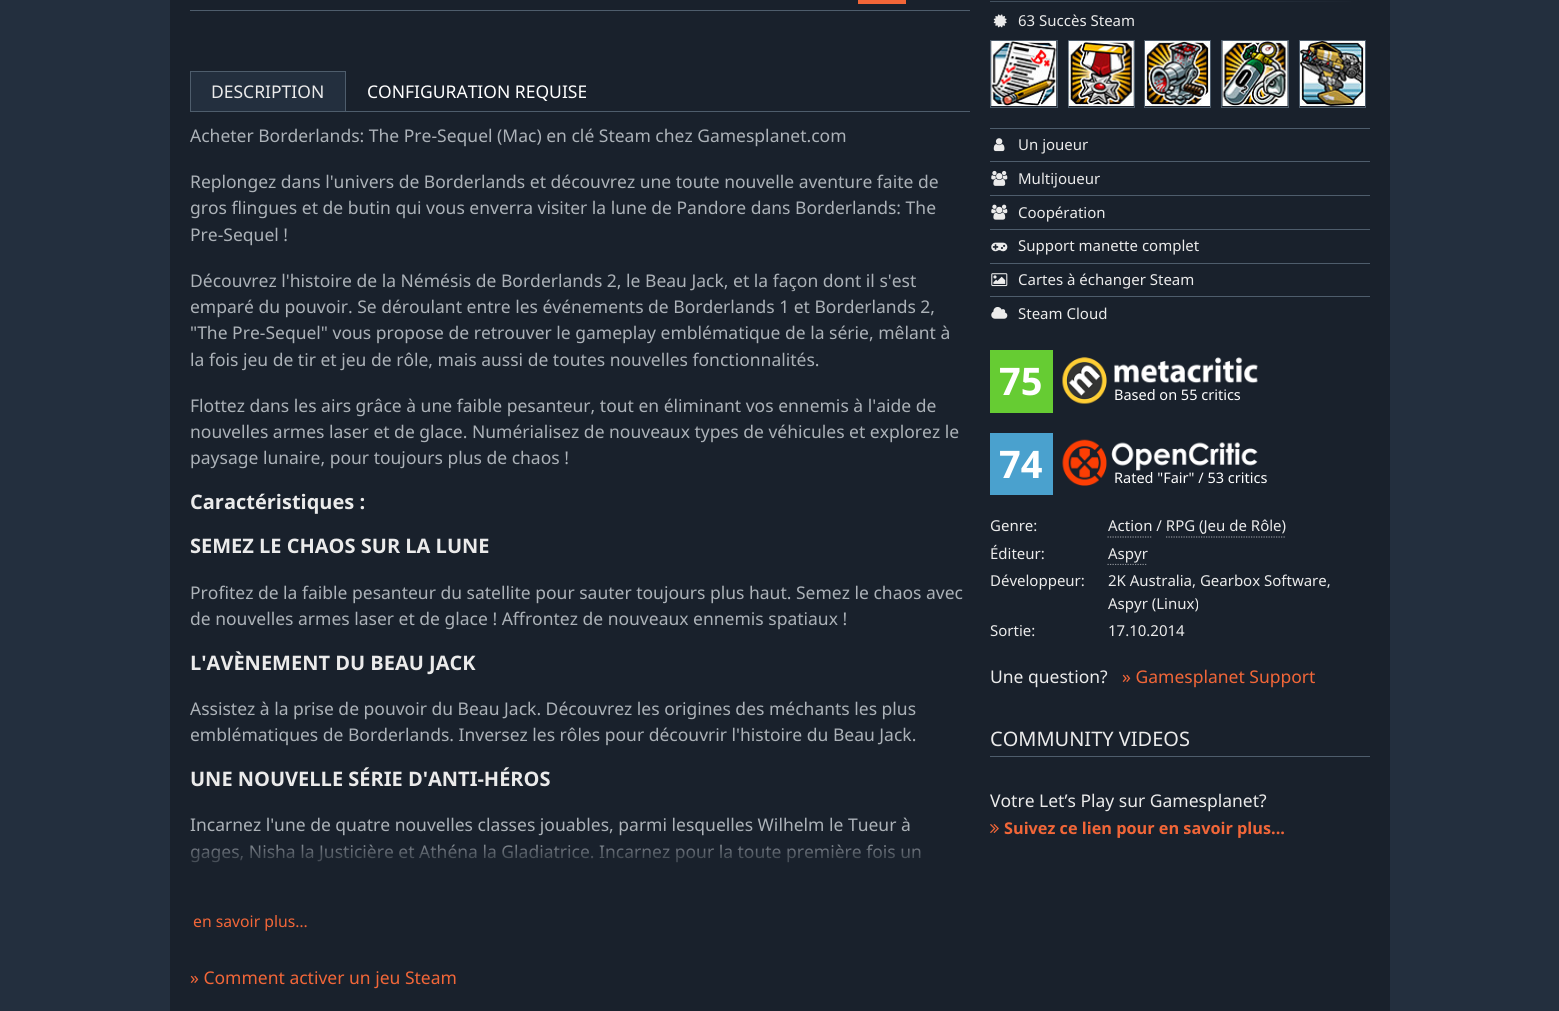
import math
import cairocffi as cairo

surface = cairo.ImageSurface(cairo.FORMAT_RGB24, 1559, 1011)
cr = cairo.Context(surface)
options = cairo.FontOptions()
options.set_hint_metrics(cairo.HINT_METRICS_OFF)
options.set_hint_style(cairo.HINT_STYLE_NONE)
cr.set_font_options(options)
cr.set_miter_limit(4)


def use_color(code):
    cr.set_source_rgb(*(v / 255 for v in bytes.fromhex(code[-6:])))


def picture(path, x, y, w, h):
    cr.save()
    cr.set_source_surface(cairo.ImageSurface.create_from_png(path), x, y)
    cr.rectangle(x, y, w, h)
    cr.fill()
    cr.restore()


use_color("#232f3e")
cr.paint()
use_color("#19212c")
cr.rectangle(170, 0, 1220, 1011)
cr.fill()
use_color("#4e5d6c")
cr.rectangle(190, 10, 780, 1)
cr.fill()
use_color("#f26638")
cr.rectangle(858, 0, 48, 4)
cr.fill()
use_color("#4e5d6c")
cr.rectangle(190, 111, 780, 1)
cr.fill()
use_color("#232f3e")
cr.rectangle(191, 72, 154, 39)
cr.fill()
cr.save()
cr.rectangle(190, 71, 780, 40)
cr.clip()
cr.rectangle(190.5, 71.5, 155, 41)
use_color("#4e5d6c")
cr.set_line_width(1)
cr.stroke()
cr.restore()
cr.select_font_face("Noto Sans")
cr.set_font_size(17.5)
use_color("#ebebeb")
cr.move_to(211, 98)
cr.show_text("DESCRIPTION")
use_color("#ffffff")
cr.move_to(367, 98)
cr.show_text("CONFIGURATION REQUISE")
use_color("#acb2b8")
cr.move_to(190, 142)
cr.show_text("Acheter Borderlands: The Pre-Sequel (Mac) en clé Steam chez Gamesplanet.com")
cr.move_to(190, 188)
cr.show_text("Replongez dans l'univers de Borderlands et découvrez une toute nouvelle aventure faite de")
cr.move_to(190, 214)
cr.show_text("gros flingues et de butin qui vous enverra visiter la lune de Pandore dans Borderlands: The")
cr.move_to(190, 241)
cr.show_text("Pre-Sequel !")
cr.move_to(190, 287)
cr.show_text("Découvrez l'histoire de la Némésis de Borderlands 2, le Beau Jack, et la façon dont il s'est")
cr.move_to(190, 313)
cr.show_text("emparé du pouvoir. Se déroulant entre les événements de Borderlands 1 et Borderlands 2,")
cr.move_to(190, 339)
cr.show_text("\"The Pre-Sequel\" vous propose de retrouver le gameplay emblématique de la série, mêlant à")
cr.move_to(190, 366)
cr.show_text("la fois jeu de tir et jeu de rôle, mais aussi de toutes nouvelles fonctionnalités.")
cr.move_to(190, 412)
cr.show_text("Flottez dans les airs grâce à une faible pesanteur, tout en éliminant vos ennemis à l'aide de")
cr.move_to(190, 438)
cr.show_text("nouvelles armes laser et de glace. Numérialisez de nouveaux types de véhicules et explorez le")
cr.move_to(190, 464)
cr.show_text("paysage lunaire, pour toujours plus de chaos !")
cr.select_font_face("Noto Sans", cairo.FONT_SLANT_NORMAL, cairo.FONT_WEIGHT_BOLD)
cr.set_font_size(20)
use_color("#ebebeb")
cr.move_to(190, 509)
cr.show_text("Caractéristiques :")
cr.move_to(190, 553)
cr.show_text("SEMEZ LE CHAOS SUR LA LUNE")
cr.select_font_face("Noto Sans")
cr.set_font_size(17.5)
use_color("#acb2b8")
cr.move_to(190, 599)
cr.show_text("Profitez de la faible pesanteur du satellite pour sauter toujours plus haut. Semez le chaos avec")
cr.move_to(190, 625)
cr.show_text("de nouvelles armes laser et de glace ! Affrontez de nouveaux ennemis spatiaux !")
cr.select_font_face("Noto Sans", cairo.FONT_SLANT_NORMAL, cairo.FONT_WEIGHT_BOLD)
cr.set_font_size(20)
use_color("#ebebeb")
cr.move_to(190, 670)
cr.show_text("L'AVÈNEMENT DU BEAU JACK")
cr.select_font_face("Noto Sans")
cr.set_font_size(17.5)
use_color("#acb2b8")
cr.move_to(190, 715)
cr.show_text("Assistez à la prise de pouvoir du Beau Jack. Découvrez les origines des méchants les plus")
cr.move_to(190, 741)
cr.show_text("emblématiques de Borderlands. Inversez les rôles pour découvrir l'histoire du Beau Jack.")
cr.select_font_face("Noto Sans", cairo.FONT_SLANT_NORMAL, cairo.FONT_WEIGHT_BOLD)
cr.set_font_size(20)
use_color("#ebebeb")
cr.move_to(190, 786)
cr.show_text("UNE NOUVELLE SÉRIE D'ANTI-HÉROS")
cr.select_font_face("Noto Sans")
cr.set_font_size(17.5)
use_color("#acb2b8")
cr.move_to(190, 831)
cr.show_text("Incarnez l'une de quatre nouvelles classes jouables, parmi lesquelles Wilhelm le Tueur à")
cr.move_to(190, 858)
cr.show_text("gages, Nisha la Justicière et Athéna la Gladiatrice. Incarnez pour la toute première fois un")
gradient = cairo.LinearGradient(578, 836, 578, 935)
gradient.add_color_stop_rgba(0, 0.098, 0.129, 0.173, 0)
gradient.add_color_stop_rgba(0.01, 0.098, 0.129, 0.173, 0)
gradient.add_color_stop_rgba(0.2, 0.098, 0.129, 0.173, 0.65)
gradient.add_color_stop_rgba(0.75, 0.098, 0.129, 0.173, 1)
cr.set_source(gradient)
cr.rectangle(191, 844, 730, 19)
cr.fill()
cr.set_font_size(15.75)
use_color("#f26638")
cr.move_to(193, 927)
cr.show_text("en savoir plus…")
cr.set_font_size(17.5)
cr.move_to(190, 984)
cr.show_text("» Comment activer un jeu Steam")
gradient = cairo.LinearGradient(990, 1.9, 1370, 1.9)
gradient.add_color_stop_rgba(0, 0.263, 0.318, 0.373, 1)
gradient.add_color_stop_rgba(1, 0.098, 0.129, 0.173, 1)
cr.set_source(gradient)
cr.rectangle(990, 1, 361, 1)
cr.fill()
picture("img1.png", 993, 14, 14, 14)
cr.set_font_size(15)
use_color("#ebebeb")
cr.move_to(1018, 26)
cr.show_text("63 Succès Steam")
cr.rectangle(990.5, 40.5, 67, 67)
use_color("#4e5d6c")
cr.set_line_width(1)
cr.stroke()
cr.rectangle(1068.5, 40.5, 66, 67)
cr.stroke()
cr.rectangle(1144.5, 40.5, 66, 67)
cr.stroke()
cr.rectangle(1221.5, 40.5, 67, 67)
cr.stroke()
cr.rectangle(1299.5, 40.5, 66, 67)
cr.stroke()
picture("img2.png", 991, 41, 66, 65)
picture("img3.png", 1068, 41, 66, 65)
picture("img4.png", 1145, 41, 65, 65)
picture("img5.png", 1222, 41, 66, 65)
picture("img6.png", 1300, 41, 65, 65)
cr.rectangle(990, 128, 380, 1)
cr.fill()
picture("img7.png", 993, 138, 12, 14)
use_color("#ebebeb")
cr.move_to(1018, 150)
cr.show_text("Un joueur")
use_color("#4e5d6c")
cr.rectangle(990, 161, 380, 1)
cr.fill()
picture("img8.png", 991, 170, 17, 16)
use_color("#ebebeb")
cr.move_to(1018, 184)
cr.show_text("Multijoueur")
use_color("#4e5d6c")
cr.rectangle(990, 195, 380, 1)
cr.fill()
picture("img9.png", 991, 204, 17, 16)
use_color("#ebebeb")
cr.move_to(1018, 218)
cr.show_text("Coopération")
use_color("#4e5d6c")
cr.rectangle(990, 229, 380, 1)
cr.fill()
picture("img10.png", 991, 242, 17, 10)
use_color("#ebebeb")
cr.move_to(1018, 251)
cr.show_text("Support manette complet")
use_color("#4e5d6c")
cr.rectangle(990, 263, 380, 1)
cr.fill()
picture("img11.png", 991, 273, 17, 14)
use_color("#ebebeb")
cr.move_to(1018, 285)
cr.show_text("Cartes à échanger Steam")
use_color("#4e5d6c")
cr.rectangle(990, 296, 380, 1)
cr.fill()
picture("img12.png", 991, 307, 17, 12)
use_color("#ebebeb")
cr.move_to(1018, 319)
cr.show_text("Steam Cloud")
use_color("#66cc33")
cr.rectangle(990, 350, 63, 63)
cr.fill()
cr.select_font_face("Noto Sans", cairo.FONT_SLANT_NORMAL, cairo.FONT_WEIGHT_BOLD)
cr.set_font_size(38)
use_color("#ffffff")
cr.move_to(999, 395)
cr.show_text("75")
picture("img13.png", 1062, 357, 196, 47)
cr.select_font_face("Noto Sans")
cr.set_font_size(14.5)
cr.move_to(1114, 400)
cr.show_text("Based on 55 critics")
use_color("#4aa1ce")
cr.rectangle(990, 433, 63, 62)
cr.fill()
cr.select_font_face("Noto Sans", cairo.FONT_SLANT_NORMAL, cairo.FONT_WEIGHT_BOLD)
cr.set_font_size(38)
use_color("#ffffff")
cr.move_to(999, 478)
cr.show_text("74")
picture("img14.png", 1062, 439, 196, 47)
cr.select_font_face("Noto Sans")
cr.set_font_size(14.5)
cr.move_to(1114, 483)
cr.show_text("Rated \"Fair\" / 53 critics")
cr.set_font_size(15)
use_color("#ebebeb")
cr.move_to(990, 531)
cr.show_text("Genre:")
cr.move_to(1108, 531)
cr.show_text("Action / RPG (Jeu de Rôle)")
cr.new_path()
cr.move_to(1107.5, 537)
cr.line_to(1152.5, 537)
use_color("#8c9096")
cr.set_line_width(1.2)
cr.set_dash([1.25, 1.25])
cr.stroke()
cr.new_path()
cr.move_to(1166, 537)
cr.line_to(1286, 537)
cr.stroke()
use_color("#ebebeb")
cr.move_to(990, 559)
cr.show_text("Éditeur:")
cr.move_to(1108, 559)
cr.show_text("Aspyr")
cr.save()
cr.rectangle(990, 543, 380, 22)
cr.clip()
cr.new_path()
cr.move_to(1107.5, 564.5)
cr.line_to(1147.5, 564.5)
use_color("#8c9096")
cr.stroke()
cr.restore()
cr.move_to(990, 586)
cr.show_text("Développeur:")
cr.move_to(1108, 586)
cr.show_text("2K Australia, Gearbox Software,")
cr.move_to(1108, 609)
cr.show_text("Aspyr (Linux)")
cr.move_to(990, 636)
cr.show_text("Sortie:")
cr.move_to(1108, 636)
cr.show_text("17.10.2014")
cr.set_font_size(17.5)
cr.move_to(990, 683)
cr.show_text("Une question?")
use_color("#f26638")
cr.move_to(1122, 683)
cr.show_text("» Gamesplanet Support")
use_color("#4e5d6c")
cr.rectangle(990, 756, 380, 1)
cr.fill()
cr.set_font_size(20)
use_color("#ebebeb")
cr.move_to(990, 746)
cr.show_text("COMMUNITY VIDEOS")
cr.set_font_size(17.5)
cr.move_to(990, 807)
cr.show_text("Votre Let’s Play sur Gamesplanet?")
picture("img15.png", 990, 824, 9, 9)
cr.select_font_face("Noto Sans", cairo.FONT_SLANT_NORMAL, cairo.FONT_WEIGHT_BOLD)
cr.set_font_size(16.25)
use_color("#f26638")
cr.move_to(1004, 834)
cr.show_text("Suivez ce lien pour en savoir plus...")
surface.write_to_png("result.png")
